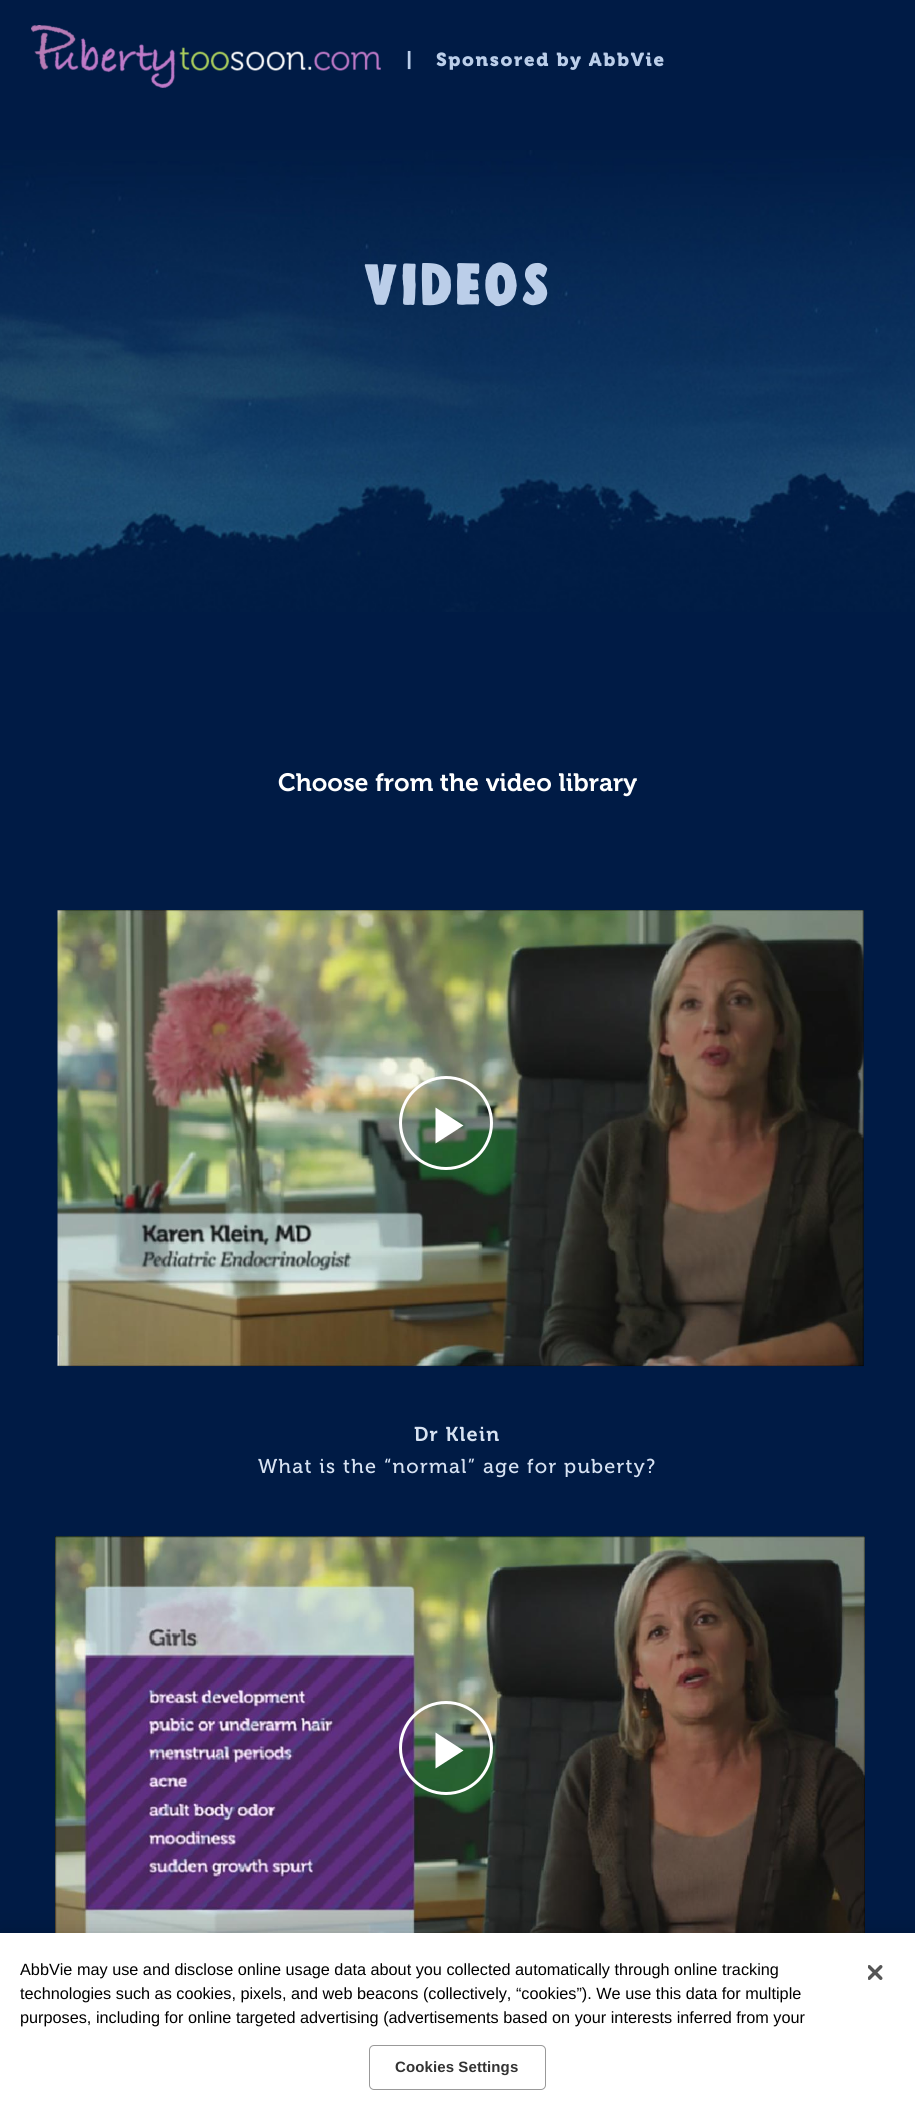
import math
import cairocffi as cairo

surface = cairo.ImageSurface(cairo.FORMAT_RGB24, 915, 2109)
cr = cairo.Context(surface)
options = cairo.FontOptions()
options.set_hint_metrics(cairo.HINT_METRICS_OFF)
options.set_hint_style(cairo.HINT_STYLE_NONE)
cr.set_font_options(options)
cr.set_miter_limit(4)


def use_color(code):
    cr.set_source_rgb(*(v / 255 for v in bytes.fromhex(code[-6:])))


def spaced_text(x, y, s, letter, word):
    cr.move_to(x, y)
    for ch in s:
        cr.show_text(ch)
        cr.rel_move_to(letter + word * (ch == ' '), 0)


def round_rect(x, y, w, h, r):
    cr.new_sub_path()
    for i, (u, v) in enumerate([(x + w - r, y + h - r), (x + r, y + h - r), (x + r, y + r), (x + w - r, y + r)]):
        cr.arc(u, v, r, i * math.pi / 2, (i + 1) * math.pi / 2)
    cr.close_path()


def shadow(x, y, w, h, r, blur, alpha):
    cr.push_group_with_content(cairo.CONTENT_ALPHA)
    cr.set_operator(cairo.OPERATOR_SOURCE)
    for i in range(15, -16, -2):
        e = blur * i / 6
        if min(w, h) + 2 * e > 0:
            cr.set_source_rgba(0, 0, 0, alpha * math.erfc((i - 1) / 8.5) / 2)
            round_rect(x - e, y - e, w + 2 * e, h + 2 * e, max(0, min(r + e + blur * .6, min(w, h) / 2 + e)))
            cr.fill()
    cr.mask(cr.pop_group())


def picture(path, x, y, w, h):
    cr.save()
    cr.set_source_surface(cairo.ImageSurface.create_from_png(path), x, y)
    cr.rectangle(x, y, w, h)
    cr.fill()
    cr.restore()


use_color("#001b45")
cr.paint()
picture("img1.png", 31, 25, 350, 63)
cr.select_font_face("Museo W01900 ExtraBold")
cr.set_font_size(18.75)
use_color("#bbcee9")
spaced_text(406, 66, "|", 1.6, 0)
spaced_text(436, 66, "Sponsored by AbbVie", 1.6, 0)
picture("img2.png", 0, 150, 915, 462)
cr.select_font_face("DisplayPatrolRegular")
cr.set_font_size(60)
spaced_text(363, 305, "videos", 2.5, 0)
cr.select_font_face("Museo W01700 SemiBold")
cr.set_font_size(25)
use_color("#ffffff")
cr.move_to(278, 791)
cr.show_text("Choose from the video library")
picture("img3.png", 57, 910, 807, 457)
cr.arc(446, 1123, 45.5, 0, 2 * math.pi)
cr.set_line_width(3)
cr.stroke()
cr.new_path()
cr.move_to(435.5, 1107.5)
cr.line_to(435.5, 1143.5)
cr.line_to(463.5, 1125.5)
cr.close_path()
cr.fill()
cr.set_font_size(20)
use_color("#d7e2f2")
spaced_text(414, 1441, "Dr Klein", 1.25, 0)
cr.select_font_face("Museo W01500")
spaced_text(258, 1473, "What is the “normal” age for puberty?", 1.25, 0)
picture("img4.png", 55, 1536, 810, 397)
cr.arc(446, 1748, 45.5, 0, 2 * math.pi)
use_color("#ffffff")
cr.stroke()
cr.new_path()
cr.move_to(435.5, 1732.5)
cr.line_to(435.5, 1768.5)
cr.line_to(463.5, 1750.5)
cr.close_path()
cr.fill()
use_color("#000000")
shadow(0, 1933, 915, 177, 0, 11, 0.2)
use_color("#ffffff")
cr.rectangle(0, 1933, 915, 176)
cr.fill()
cr.select_font_face("Liberation Sans")
cr.set_font_size(16.25)
use_color("#000000")
cr.move_to(20, 1975)
cr.show_text("AbbVie may use and disclose online usage data about you collected automatically through online tracking")
cr.move_to(20, 1999)
cr.show_text("technologies such as cookies, pixels, and web beacons (collectively, “cookies”). We use this data for multiple")
cr.move_to(20, 2023)
cr.show_text("purposes, including for online targeted advertising (advertisements based on your interests inferred from your")
round_rect(369.5, 2045.5, 176, 44, 4.5)
use_color("#999999")
cr.set_line_width(1)
cr.stroke()
cr.select_font_face("Liberation Sans", cairo.FONT_SLANT_NORMAL, cairo.FONT_WEIGHT_BOLD)
cr.set_font_size(15)
use_color("#333333")
spaced_text(395, 2072, "Cookies Settings", 0.1, 0)
picture("img5.png", 868, 1965, 15, 15)
surface.write_to_png("result.png")
